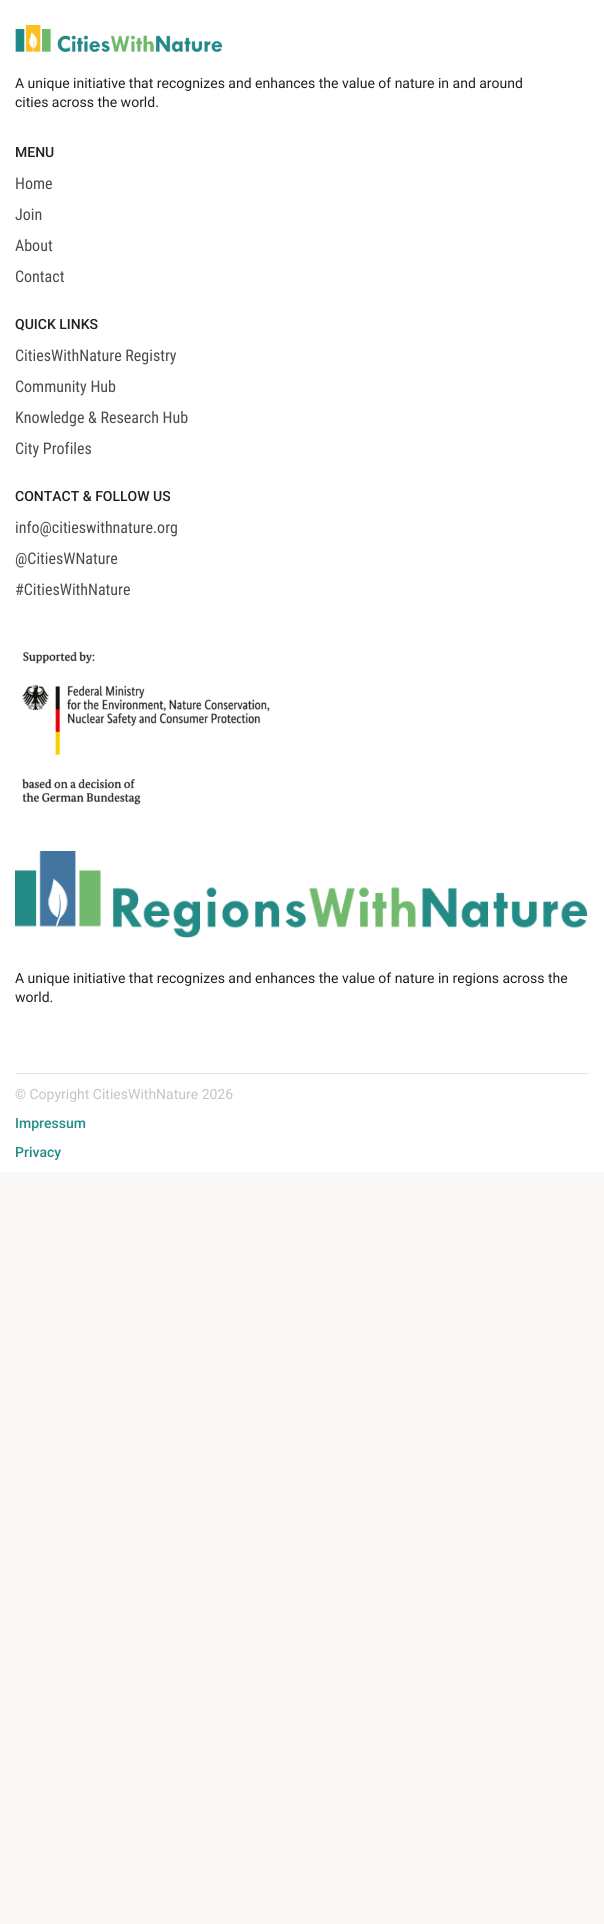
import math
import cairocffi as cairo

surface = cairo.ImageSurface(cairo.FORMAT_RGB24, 604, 1924)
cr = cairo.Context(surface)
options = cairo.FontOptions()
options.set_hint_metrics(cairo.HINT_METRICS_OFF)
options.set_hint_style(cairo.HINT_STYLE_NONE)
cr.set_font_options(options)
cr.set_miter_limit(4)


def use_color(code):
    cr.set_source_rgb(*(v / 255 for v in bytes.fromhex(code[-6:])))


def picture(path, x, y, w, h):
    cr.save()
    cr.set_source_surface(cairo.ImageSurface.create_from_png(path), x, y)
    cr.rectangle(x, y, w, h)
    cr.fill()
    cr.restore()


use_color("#f9f8f6")
cr.paint()
use_color("#ffffff")
cr.rectangle(0, 0, 604, 1172)
cr.fill()
use_color("#e5e5e5")
cr.rectangle(15, 1073, 574, 1)
cr.fill()
picture("img1.png", 15, 25, 208, 27)
cr.select_font_face("Roboto")
cr.set_font_size(14)
use_color("#231f20")
cr.move_to(15, 88)
cr.show_text("A unique initiative that recognizes and enhances the value of nature in and around")
cr.move_to(15, 107)
cr.show_text("cities across the world.")
cr.select_font_face("Roboto Medium")
cr.move_to(15, 157)
cr.show_text("MENU")
cr.select_font_face("Roboto Condensed")
cr.set_font_size(16)
use_color("#4b4b4b")
cr.move_to(15, 189)
cr.show_text("Home")
cr.move_to(15, 220)
cr.show_text("Join")
cr.move_to(15, 251)
cr.show_text("About")
cr.move_to(15, 282)
cr.show_text("Contact")
cr.select_font_face("Roboto Medium")
cr.set_font_size(14)
use_color("#231f20")
cr.move_to(15, 329)
cr.show_text("QUICK LINKS")
cr.select_font_face("Roboto Condensed")
cr.set_font_size(16)
use_color("#4b4b4b")
cr.move_to(15, 361)
cr.show_text("CitiesWithNature Registry")
cr.move_to(15, 392)
cr.show_text("Community Hub")
cr.move_to(15, 423)
cr.show_text("Knowledge & Research Hub")
cr.move_to(15, 454)
cr.show_text("City Profiles")
cr.select_font_face("Roboto Medium")
cr.set_font_size(14)
use_color("#231f20")
cr.move_to(15, 501)
cr.show_text("CONTACT & FOLLOW US")
cr.select_font_face("Roboto Condensed")
cr.set_font_size(16)
use_color("#4b4b4b")
cr.move_to(15, 533)
cr.show_text("info@citieswithnature.org")
cr.move_to(15, 564)
cr.show_text("@CitiesWNature")
cr.move_to(15, 595)
cr.show_text("#CitiesWithNature")
picture("img2.png", 22, 651, 248, 154)
picture("img3.png", 15, 851, 573, 87)
cr.select_font_face("Roboto")
cr.set_font_size(14)
use_color("#231f20")
cr.move_to(15, 983)
cr.show_text("A unique initiative that recognizes and enhances the value of nature in regions across the")
cr.move_to(15, 1002)
cr.show_text("world.")
use_color("#c4c4c4")
cr.move_to(15, 1099)
cr.show_text("© Copyright CitiesWithNature 2026")
cr.select_font_face("Roboto Medium")
use_color("#248a86")
cr.move_to(15, 1128)
cr.show_text("Impressum")
cr.move_to(15, 1157)
cr.show_text("Privacy")
surface.write_to_png("result.png")
